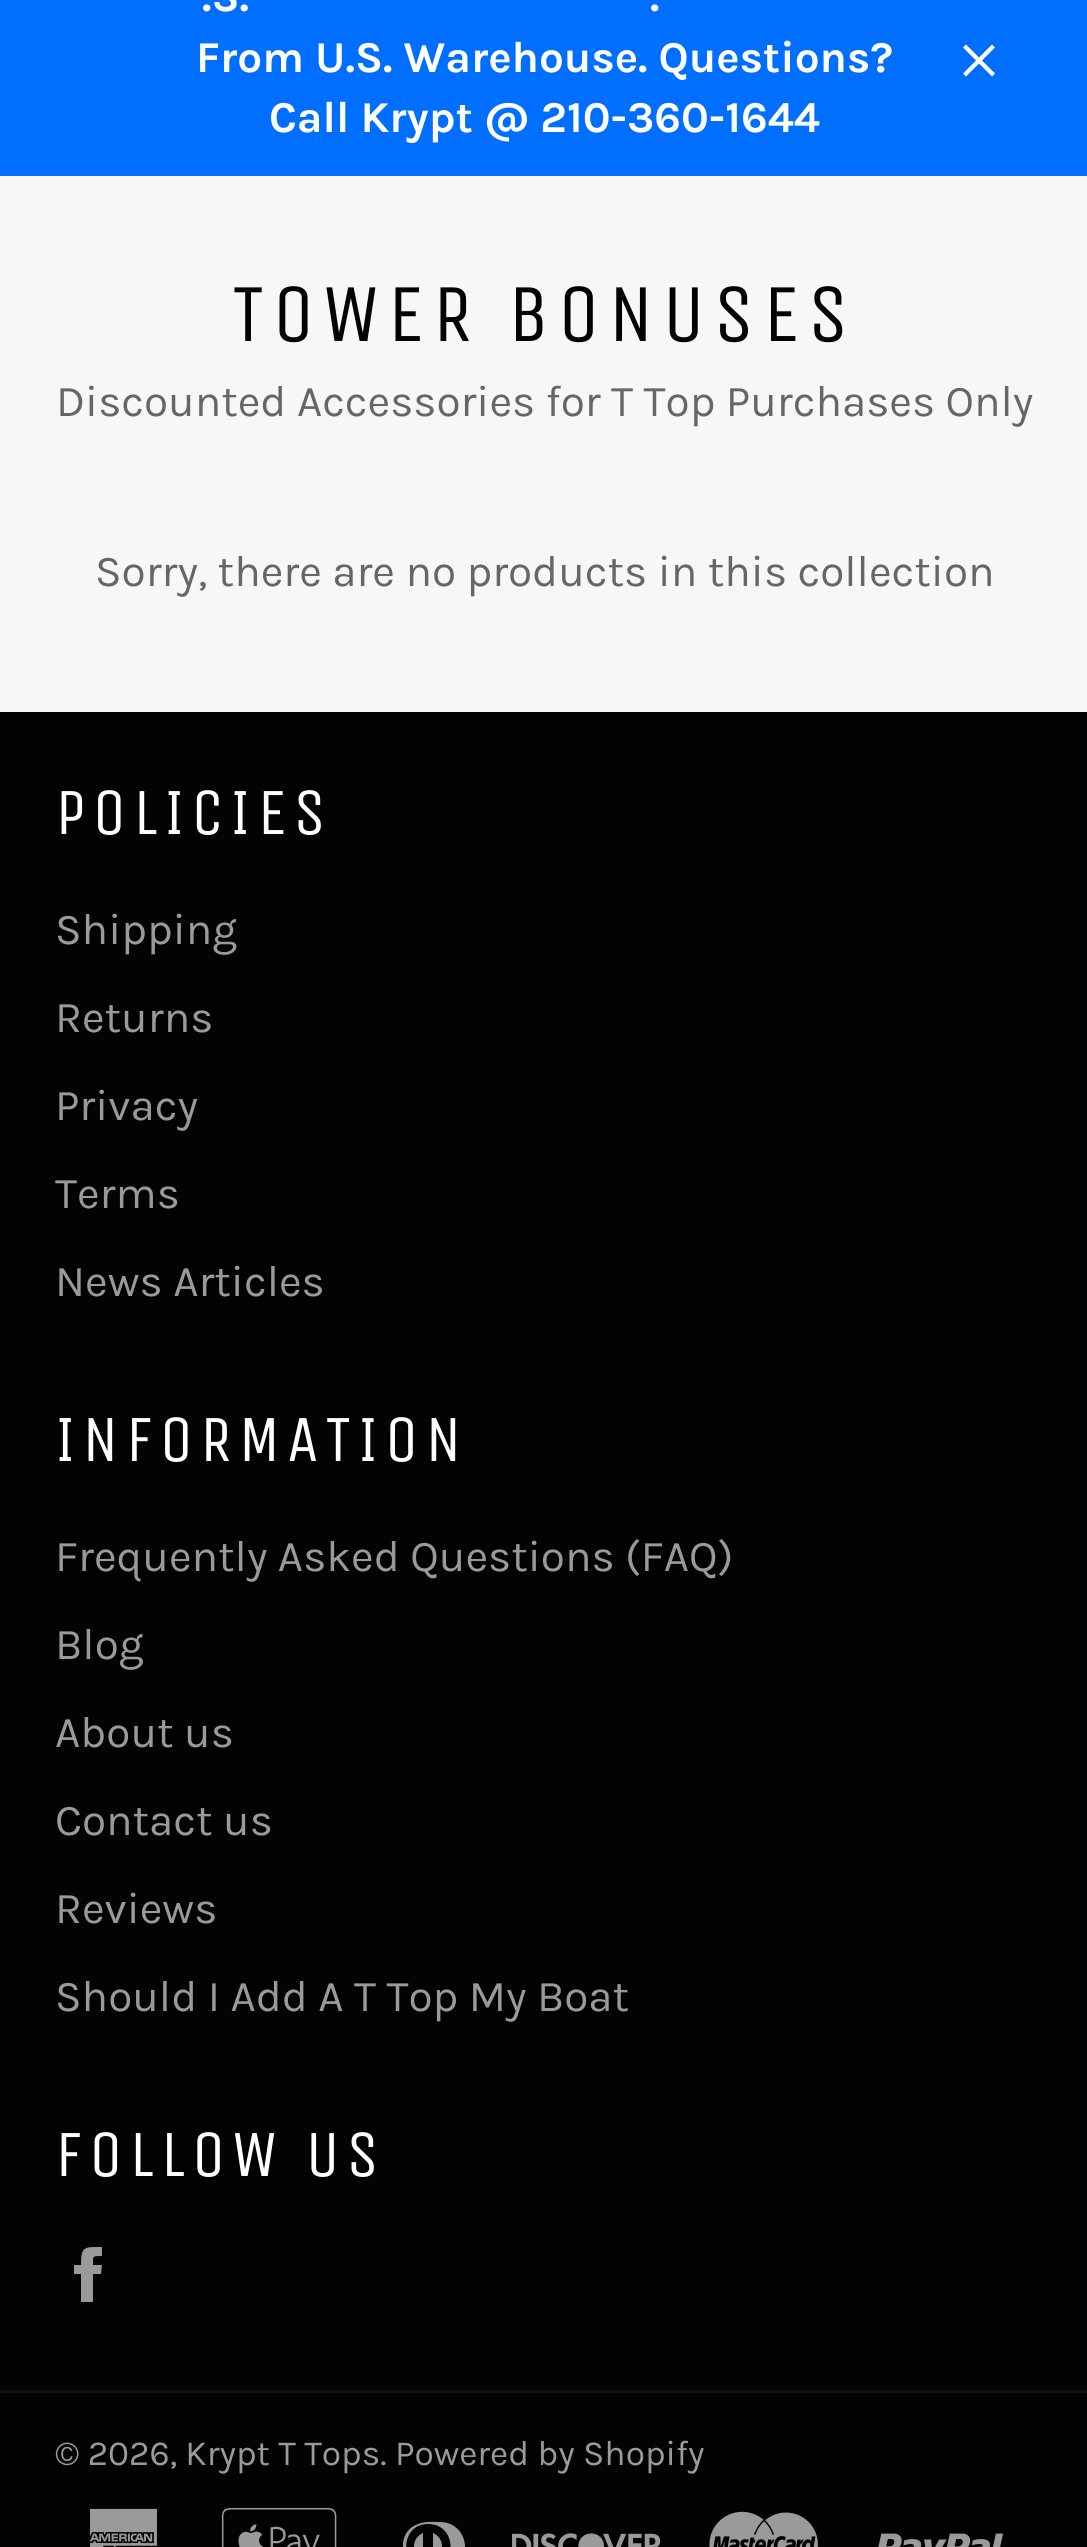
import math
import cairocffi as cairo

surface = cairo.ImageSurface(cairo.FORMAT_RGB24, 1087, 2547)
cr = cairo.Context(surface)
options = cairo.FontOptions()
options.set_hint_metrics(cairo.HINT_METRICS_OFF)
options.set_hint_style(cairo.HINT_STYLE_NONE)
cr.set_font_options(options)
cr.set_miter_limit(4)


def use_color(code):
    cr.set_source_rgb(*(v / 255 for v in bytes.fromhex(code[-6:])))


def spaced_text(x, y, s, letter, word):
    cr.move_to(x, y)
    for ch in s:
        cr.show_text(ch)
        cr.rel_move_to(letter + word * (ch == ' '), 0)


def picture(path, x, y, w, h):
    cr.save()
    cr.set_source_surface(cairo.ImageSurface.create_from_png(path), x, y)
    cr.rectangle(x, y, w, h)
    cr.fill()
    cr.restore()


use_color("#f7f7f7")
cr.paint()
use_color("#006eff")
cr.rectangle(0, 0, 1087, 176)
cr.fill()
cr.select_font_face("Karla", cairo.FONT_SLANT_NORMAL, cairo.FONT_WEIGHT_BOLD)
cr.set_font_size(44)
use_color("#ffffff")
cr.move_to(202, 11)
cr.show_text(".S.")
cr.move_to(650, 11)
cr.show_text(".")
cr.move_to(196, 72)
cr.show_text("From U.S. Warehouse. Questions?")
cr.move_to(269, 132)
cr.show_text("Call Krypt @ 210-360-1644")
cr.new_path()
cr.move_to(995, 47.5)
cr.line_to(992, 44.5)
cr.line_to(979, 57.5)
cr.line_to(966, 44.5)
cr.line_to(963, 47.5)
cr.line_to(976, 60.5)
cr.line_to(963, 73.5)
cr.line_to(966, 76.5)
cr.line_to(979, 63.5)
cr.line_to(992, 76.5)
cr.line_to(995, 73.5)
cr.line_to(982, 60.5)
cr.close_path()
cr.fill()
cr.select_font_face("Unica One")
cr.set_font_size(82.5)
use_color("#030303")
spaced_text(232, 341, "TOWER BONUSES", 8.25, 0)
cr.select_font_face("Karla")
cr.set_font_size(44)
use_color("#666666")
cr.move_to(56, 416)
cr.show_text("Discounted Accessories for T Top Purchases Only")
cr.move_to(95, 586)
cr.show_text("Sorry, there are no products in this collection")
use_color("#030303")
cr.rectangle(0, 712, 1087, 1835)
cr.fill()
cr.select_font_face("Unica One")
cr.set_font_size(66)
use_color("#ffffff")
spaced_text(55, 834, "POLICIES", 6.6, 0)
cr.select_font_face("Karla")
cr.set_font_size(44)
use_color("#9a9a9a")
cr.move_to(55, 944)
cr.show_text("Shipping")
cr.move_to(55, 1032)
cr.show_text("Returns")
cr.move_to(55, 1120)
cr.show_text("Privacy")
cr.move_to(55, 1208)
cr.show_text("Terms")
cr.move_to(55, 1296)
cr.show_text("News Articles")
cr.select_font_face("Unica One")
cr.set_font_size(66)
use_color("#ffffff")
spaced_text(55, 1461, "INFORMATION", 6.6, 0)
cr.select_font_face("Karla")
cr.set_font_size(44)
use_color("#9a9a9a")
cr.move_to(55, 1571)
cr.show_text("Frequently Asked Questions (FAQ)")
cr.move_to(55, 1659)
cr.show_text("Blog")
cr.move_to(55, 1747)
cr.show_text("About us")
cr.move_to(55, 1835)
cr.show_text("Contact us")
cr.move_to(55, 1923)
cr.show_text("Reviews")
cr.move_to(55, 2011)
cr.show_text("Should I Add A T Top My Boat")
cr.select_font_face("Unica One")
cr.set_font_size(66)
use_color("#ffffff")
spaced_text(55, 2176, "FOLLOW US", 6.6, 0)
use_color("#9a9a9a")
cr.new_path()
cr.move_to(93, 2265)
cr.curve_to(93, 2256, 92, 2256, 102, 2256)
cr.line_to(102, 2247)
cr.curve_to(84, 2247, 81, 2246, 81, 2265)
cr.line_to(74, 2265)
cr.line_to(74, 2274)
cr.line_to(81, 2274)
cr.line_to(81, 2302)
cr.line_to(93, 2302)
cr.line_to(93, 2274)
cr.line_to(101, 2274)
cr.line_to(102, 2265)
cr.close_path()
cr.fill()
use_color("#101010")
cr.rectangle(0, 2390, 1087, 3)
cr.fill()
cr.select_font_face("Karla")
cr.set_font_size(35.25)
use_color("#9a9a9a")
cr.move_to(55, 2465)
cr.show_text("© 2026, Krypt T Tops. Powered by Shopify")
picture("img1.png", 90, 2508, 67, 39)
picture("img2.png", 221, 2508, 116, 39)
cr.new_path()
cr.move_to(440, 2522)
cr.curve_to(468, 2522, 475, 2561, 448, 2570)
cr.curve_to(441, 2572, 434, 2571, 428, 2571)
cr.curve_to(401, 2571, 393, 2533, 418, 2524)
cr.curve_to(425, 2521, 433, 2522, 440, 2522)
cr.close_path()
cr.move_to(428, 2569)
cr.curve_to(458, 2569, 458, 2524, 428, 2524)
cr.curve_to(399, 2524, 399, 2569, 428, 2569)
cr.close_path()
cr.move_to(423, 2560)
cr.curve_to(411, 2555, 411, 2538, 423, 2533)
cr.close_path()
cr.move_to(433, 2533)
cr.curve_to(445, 2538, 445, 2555, 433, 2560)
cr.close_path()
cr.fill()
picture("img3.png", 512, 2533, 149, 14)
picture("img4.png", 709, 2511, 109, 36)
picture("img5.png", 878, 2533, 125, 14)
surface.write_to_png("result.png")
